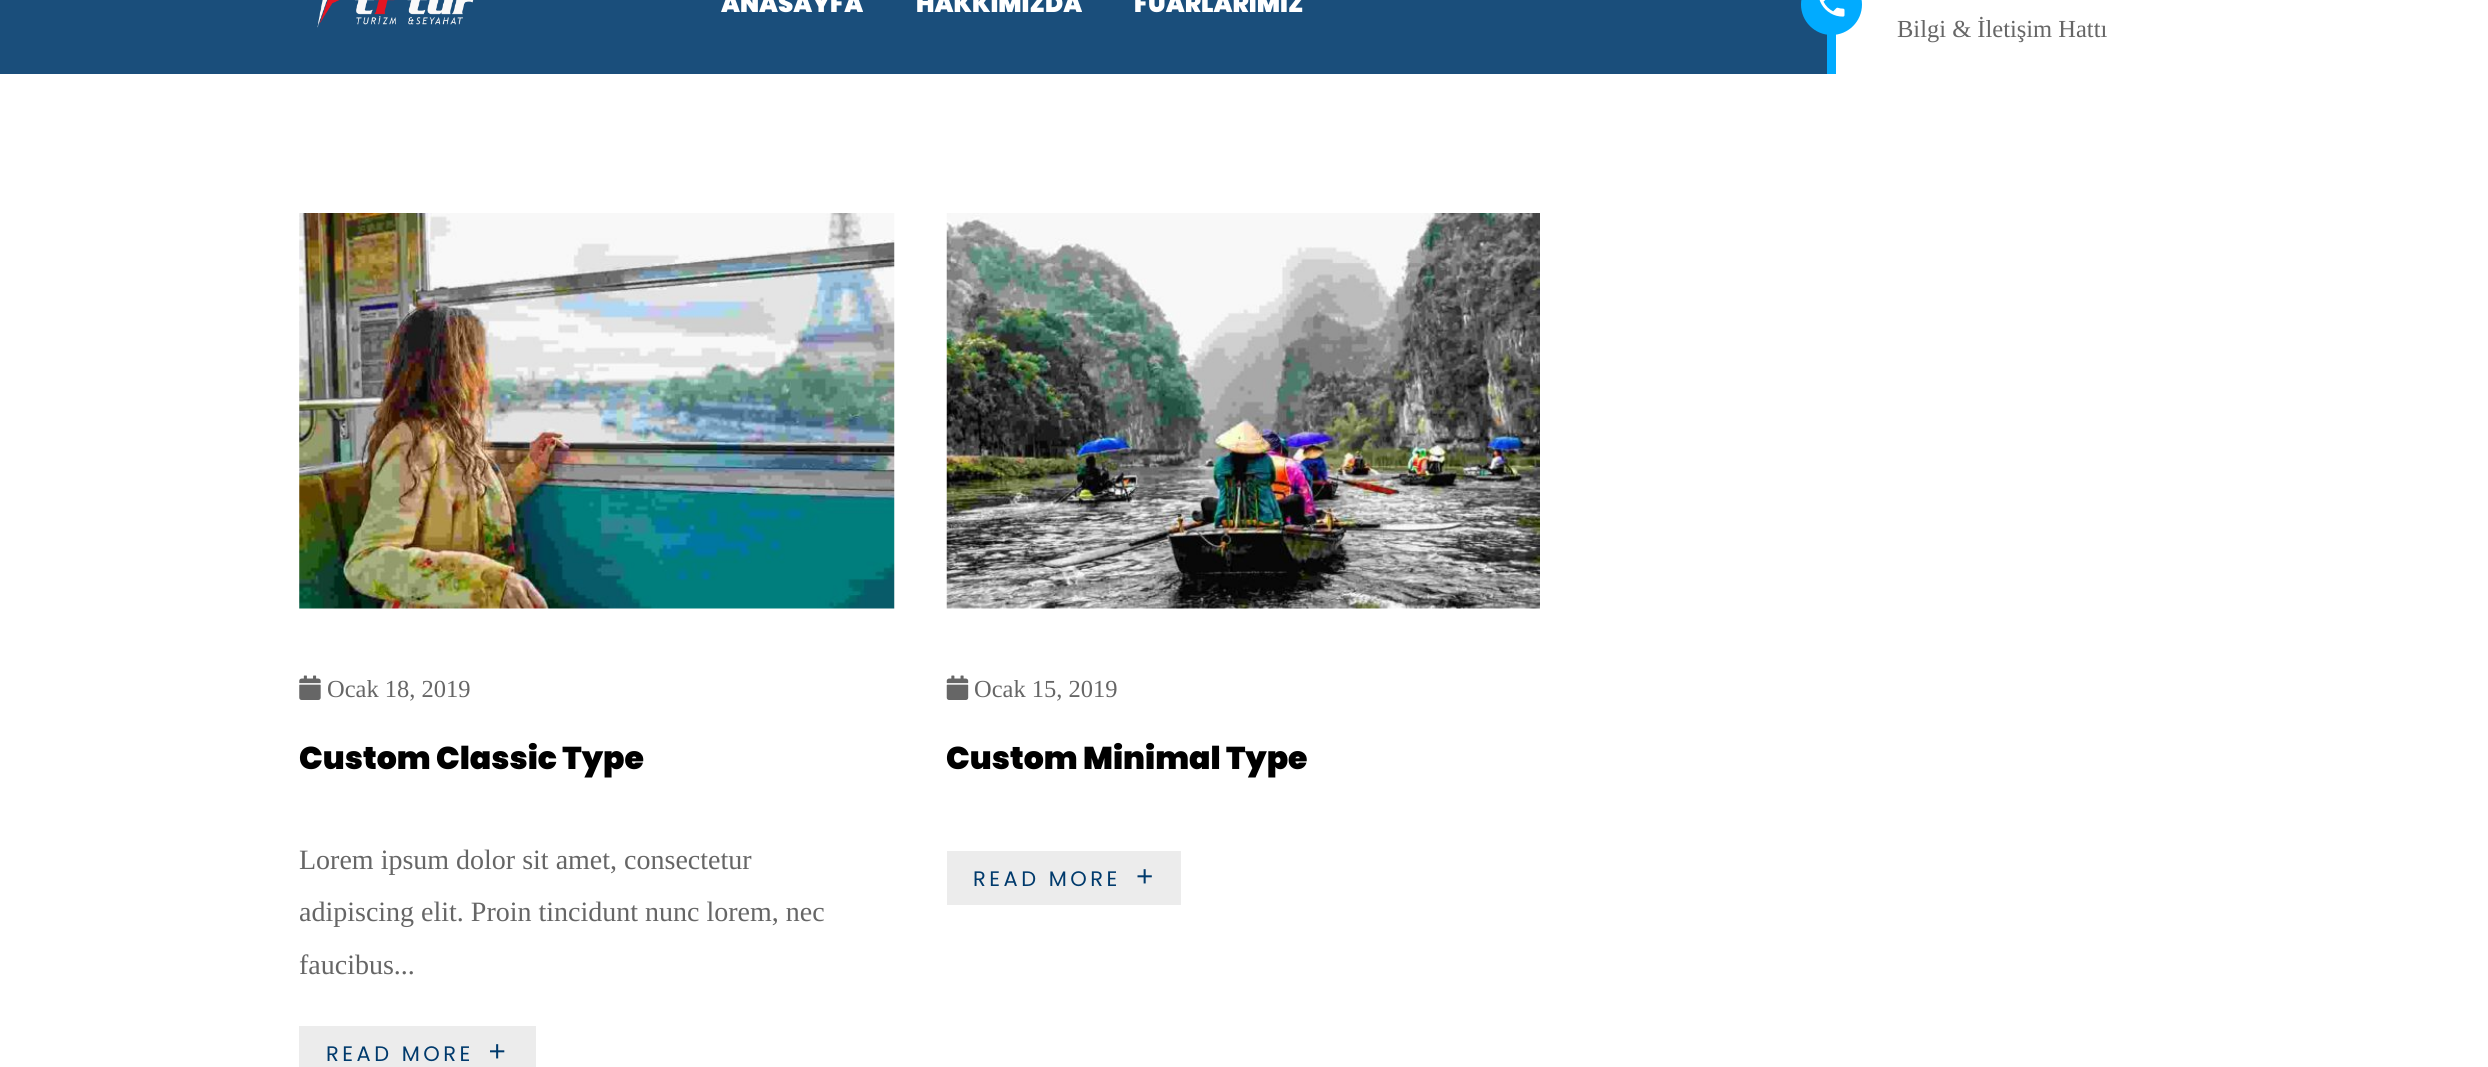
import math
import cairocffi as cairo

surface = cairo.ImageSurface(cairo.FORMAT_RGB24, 2488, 1067)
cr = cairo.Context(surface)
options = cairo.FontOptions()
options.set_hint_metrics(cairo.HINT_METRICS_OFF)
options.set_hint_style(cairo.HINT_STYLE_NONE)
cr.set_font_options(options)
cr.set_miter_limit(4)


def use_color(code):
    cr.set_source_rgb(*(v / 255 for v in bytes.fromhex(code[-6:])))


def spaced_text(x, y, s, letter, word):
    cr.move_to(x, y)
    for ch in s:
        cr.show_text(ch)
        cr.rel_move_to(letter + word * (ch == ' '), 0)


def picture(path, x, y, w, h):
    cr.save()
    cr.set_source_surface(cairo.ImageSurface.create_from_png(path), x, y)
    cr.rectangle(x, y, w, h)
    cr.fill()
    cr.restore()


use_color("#ffffff")
cr.paint()
use_color("#1a4e7b")
cr.rectangle(0, 0, 1827, 74)
cr.fill()
picture("img1.png", 317, 0, 157, 28)
cr.select_font_face("Poppins Black")
cr.set_font_size(24.5)
use_color("#ffffff")
cr.move_to(721, 12)
cr.show_text("ANASAYFA")
cr.move_to(916, 12)
cr.show_text("HAKKIMIZDA")
cr.move_to(1134, 12)
cr.show_text("FUARLARIMIZ")
use_color("#01abff")
cr.rectangle(1827, 34, 9, 40)
cr.fill()
cr.arc(1831.5, 4.5, 30.5, 0, 2 * math.pi)
cr.fill()
picture("img2.png", 1819, 0, 26, 17)
cr.select_font_face("Liberation Serif")
use_color("#666666")
cr.move_to(1897, 37)
cr.show_text("Bilgi & İletişim Hattı")
picture("img3.png", 299, 213, 596, 396)
picture("img4.png", 299, 675, 22, 25)
cr.move_to(327, 697)
cr.show_text("Ocak 18, 2019")
cr.select_font_face("Poppins Black")
cr.set_font_size(31.5)
use_color("#000000")
cr.move_to(299, 769)
cr.show_text("Custom Classic Type")
cr.select_font_face("Liberation Serif")
cr.set_font_size(28)
use_color("#666666")
cr.move_to(299, 869)
cr.show_text("Lorem ipsum dolor sit amet, consectetur")
cr.move_to(299, 921)
cr.show_text("adipiscing elit. Proin tincidunt nunc lorem, nec")
cr.move_to(299, 974)
cr.show_text("faucibus...")
use_color("#ececec")
cr.rectangle(299, 1026, 237, 41)
cr.fill()
cr.select_font_face("Poppins")
cr.set_font_size(21)
use_color("#003a6c")
spaced_text(326, 1061, "READ MORE", 3.5, 0)
picture("img5.png", 490, 1044, 15, 15)
picture("img6.png", 946, 213, 594, 396)
picture("img7.png", 946, 675, 23, 25)
cr.select_font_face("Liberation Serif")
cr.set_font_size(24.5)
use_color("#666666")
cr.move_to(974, 697)
cr.show_text("Ocak 15, 2019")
cr.select_font_face("Poppins Black")
cr.set_font_size(31.5)
use_color("#000000")
cr.move_to(946, 769)
cr.show_text("Custom Minimal Type")
use_color("#ececec")
cr.rectangle(947, 851, 234, 54)
cr.fill()
cr.select_font_face("Poppins")
cr.set_font_size(21)
use_color("#003a6c")
spaced_text(973, 886, "READ MORE", 3.5, 0)
picture("img8.png", 1137, 869, 15, 15)
surface.write_to_png("result.png")
